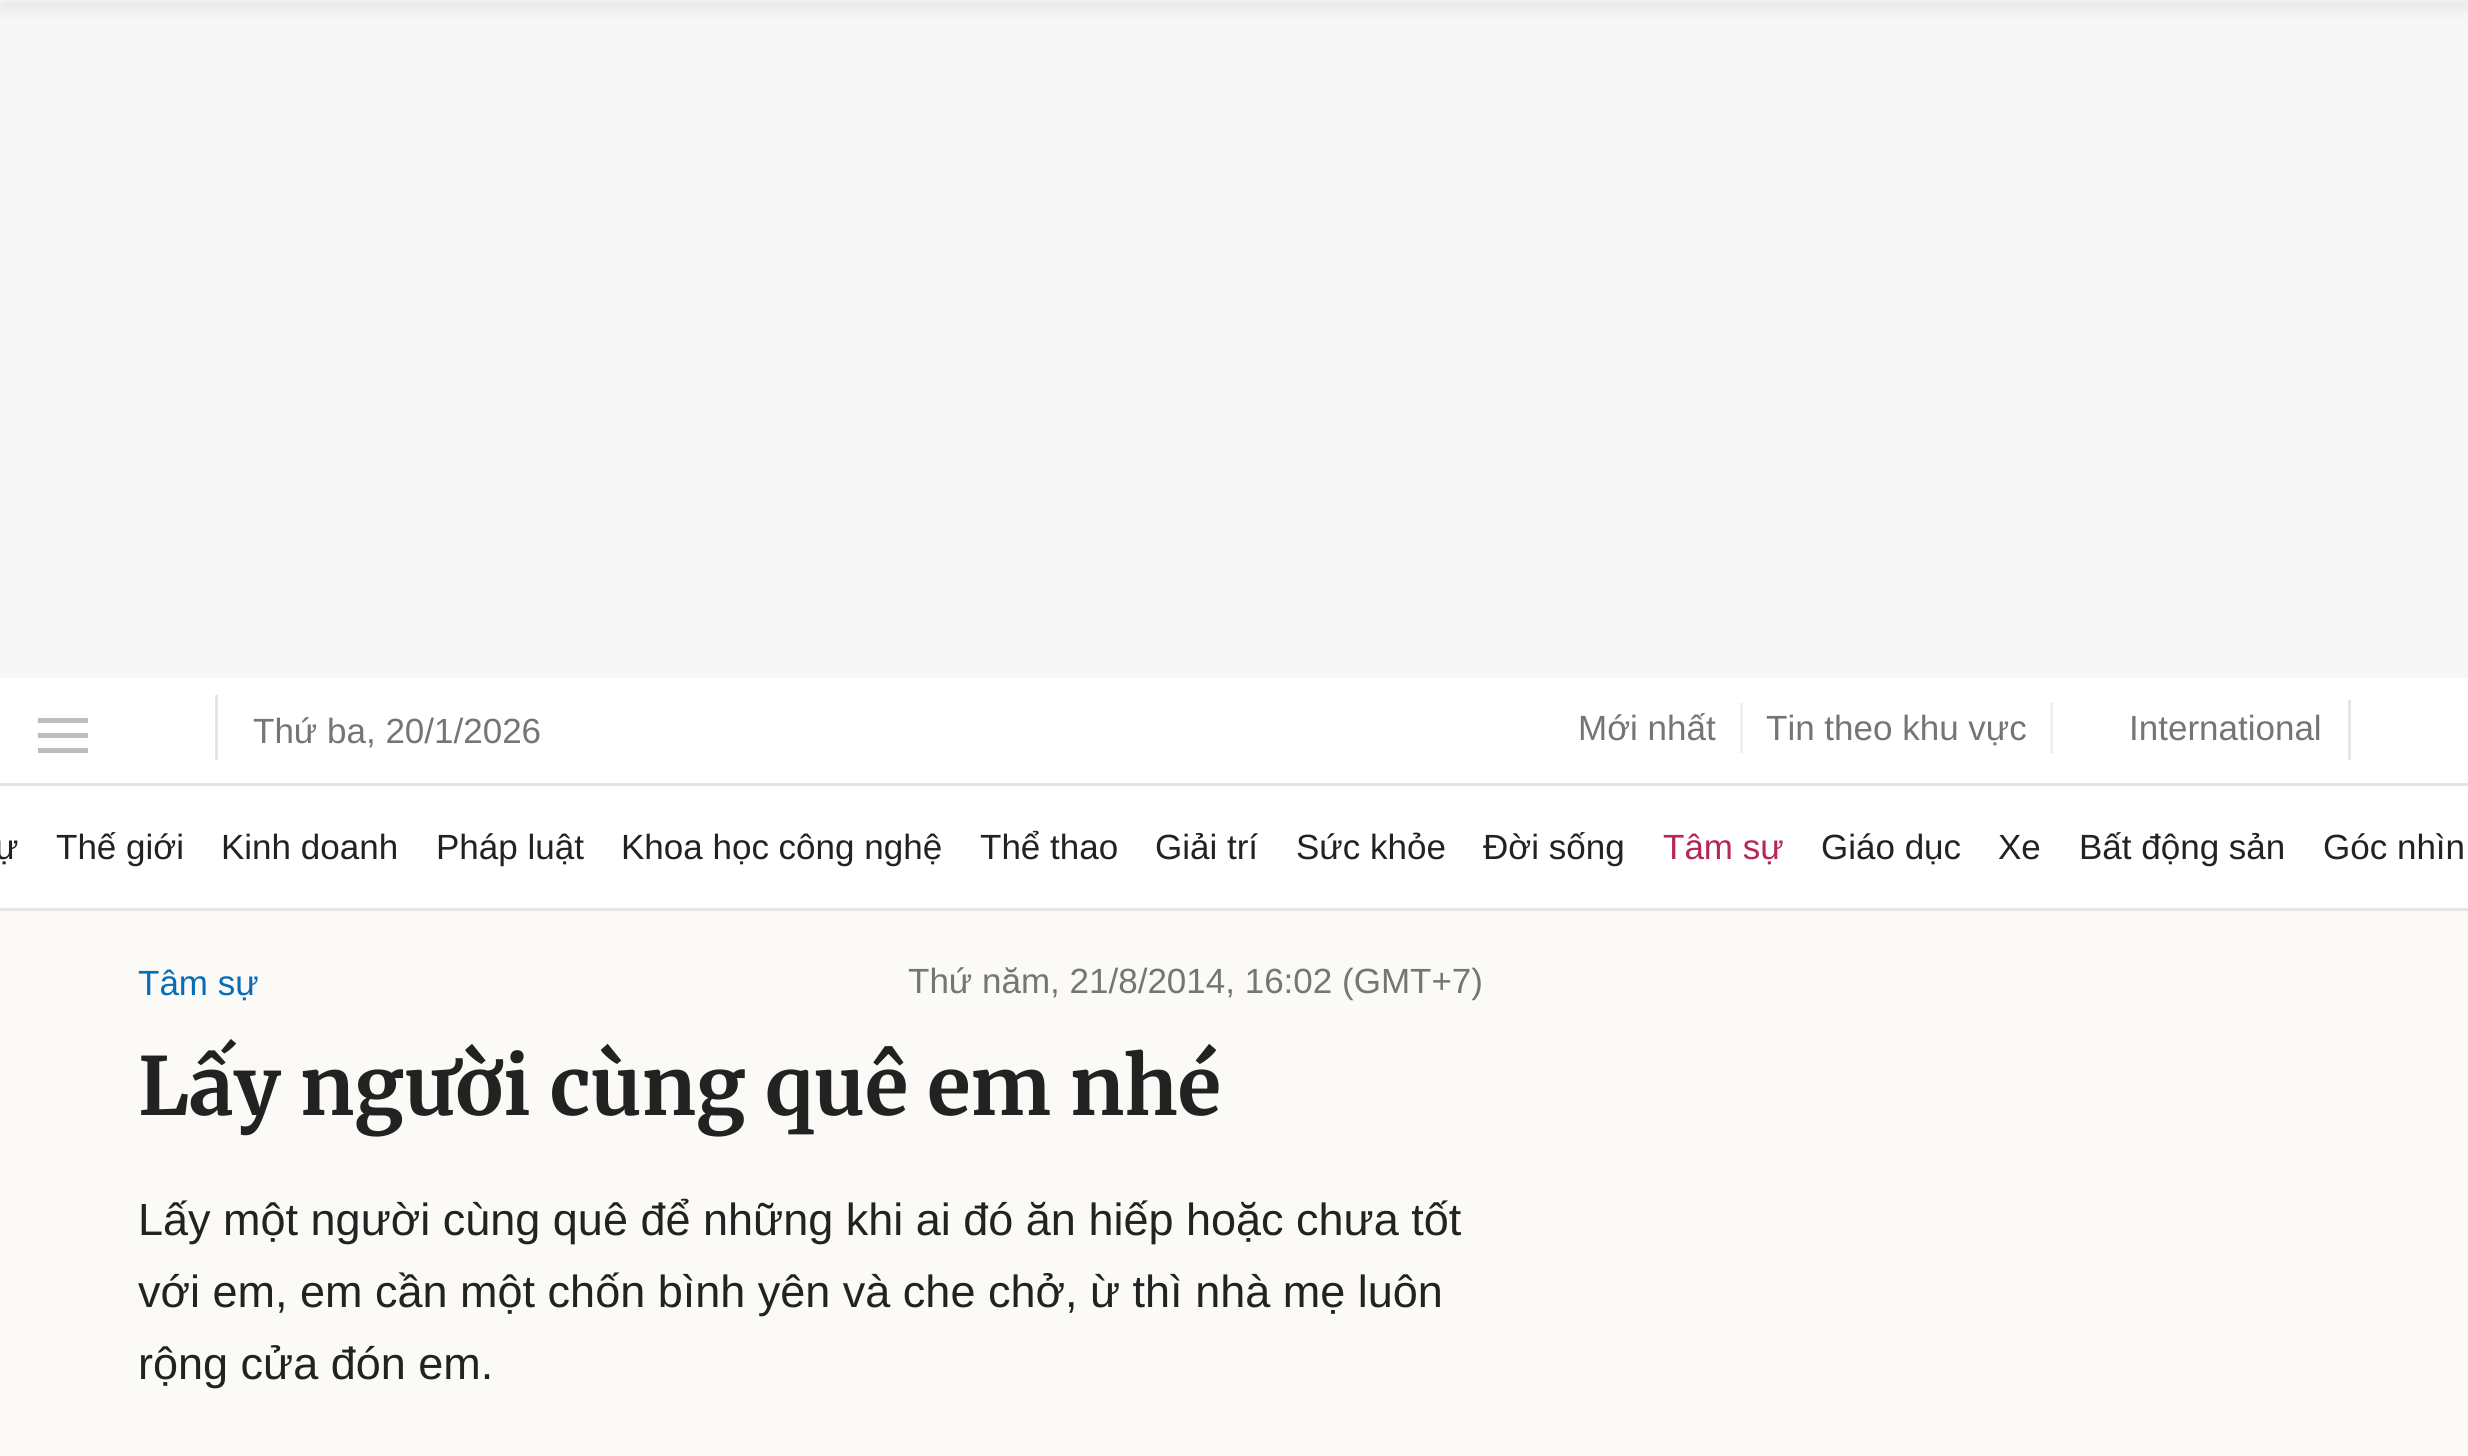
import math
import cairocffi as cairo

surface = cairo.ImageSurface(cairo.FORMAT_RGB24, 2468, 1456)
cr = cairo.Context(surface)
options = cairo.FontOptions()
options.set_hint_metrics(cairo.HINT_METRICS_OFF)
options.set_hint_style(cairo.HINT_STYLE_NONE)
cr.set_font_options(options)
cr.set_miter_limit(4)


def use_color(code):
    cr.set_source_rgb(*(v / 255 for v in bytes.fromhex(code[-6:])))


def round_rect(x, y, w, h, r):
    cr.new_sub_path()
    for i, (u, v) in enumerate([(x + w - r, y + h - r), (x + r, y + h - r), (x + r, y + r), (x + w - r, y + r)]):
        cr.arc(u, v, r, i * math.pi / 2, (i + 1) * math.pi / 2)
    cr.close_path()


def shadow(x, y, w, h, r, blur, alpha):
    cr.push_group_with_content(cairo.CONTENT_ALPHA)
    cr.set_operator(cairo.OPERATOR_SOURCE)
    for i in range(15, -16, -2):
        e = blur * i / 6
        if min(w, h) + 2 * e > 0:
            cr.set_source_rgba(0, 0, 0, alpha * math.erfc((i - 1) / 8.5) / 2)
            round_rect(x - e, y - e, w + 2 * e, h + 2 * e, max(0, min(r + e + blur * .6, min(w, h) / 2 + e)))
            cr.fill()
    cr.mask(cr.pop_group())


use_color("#ffffff")
cr.paint()
use_color("#f7f7f7")
cr.rectangle(0, 3, 2468, 675)
cr.fill()
use_color("#e5e5e5")
cr.rectangle(0, 783, 2468, 3)
cr.fill()
use_color("#bdbdbd")
cr.rectangle(38, 718, 50, 5)
cr.fill()
cr.rectangle(38, 733, 50, 5)
cr.fill()
cr.rectangle(38, 748, 50, 5)
cr.fill()
use_color("#e5e5e5")
cr.rectangle(215, 695, 3, 65)
cr.fill()
cr.select_font_face("Liberation Sans")
cr.set_font_size(35)
use_color("#757575")
cr.move_to(253, 743)
cr.show_text("Thứ ba, 20/1/2026")
cr.move_to(1578, 740)
cr.show_text("Mới nhất")
use_color("#efefef")
cr.rectangle(1740, 703, 3, 50)
cr.fill()
use_color("#757575")
cr.move_to(1766, 740)
cr.show_text("Tin theo khu vực")
use_color("#efefef")
cr.rectangle(2050, 703, 3, 50)
cr.fill()
use_color("#757575")
cr.move_to(2129, 740)
cr.show_text("International")
use_color("#e5e5e5")
cr.rectangle(2348, 700, 3, 60)
cr.fill()
cr.rectangle(0, 908, 2468, 3)
cr.fill()
use_color("#222222")
cr.move_to(-5, 859)
cr.show_text("ự")
cr.move_to(56, 859)
cr.show_text("Thế giới")
cr.move_to(221, 859)
cr.show_text("Kinh doanh")
cr.move_to(436, 859)
cr.show_text("Pháp luật")
cr.move_to(621, 859)
cr.show_text("Khoa học công nghệ")
cr.move_to(980, 859)
cr.show_text("Thể thao")
cr.move_to(1155, 859)
cr.show_text("Giải trí")
cr.move_to(1296, 859)
cr.show_text("Sức khỏe")
cr.move_to(1483, 859)
cr.show_text("Đời sống")
use_color("#b52759")
cr.move_to(1663, 859)
cr.show_text("Tâm sự")
use_color("#222222")
cr.move_to(1821, 859)
cr.show_text("Giáo dục")
cr.move_to(1998, 859)
cr.show_text("Xe")
cr.move_to(2079, 859)
cr.show_text("Bất động sản")
cr.move_to(2323, 859)
cr.show_text("Góc nhìn")
use_color("#fcfaf6")
cr.rectangle(0, 911, 2468, 545)
cr.fill()
use_color("#000000")
shadow(0, -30, 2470, 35, 0, 10, 0.1)
use_color("#076db6")
cr.move_to(138, 995)
cr.show_text("Tâm sự")
use_color("#757575")
cr.move_to(908, 993)
cr.show_text("Thứ năm, 21/8/2014, 16:02 (GMT+7)")
cr.select_font_face("Merriweather", cairo.FONT_SLANT_NORMAL, cairo.FONT_WEIGHT_BOLD)
cr.set_font_size(80)
use_color("#222222")
cr.move_to(138, 1115)
cr.show_text("Lấy người cùng quê em nhé")
cr.select_font_face("Liberation Sans")
cr.set_font_size(45)
cr.move_to(138, 1235)
cr.show_text("Lấy một người cùng quê để những khi ai đó ăn hiếp hoặc chưa tốt")
cr.move_to(138, 1307)
cr.show_text("với em, em cần một chốn bình yên và che chở, ừ thì nhà mẹ luôn")
cr.move_to(138, 1379)
cr.show_text("rộng cửa đón em.")
surface.write_to_png("result.png")
